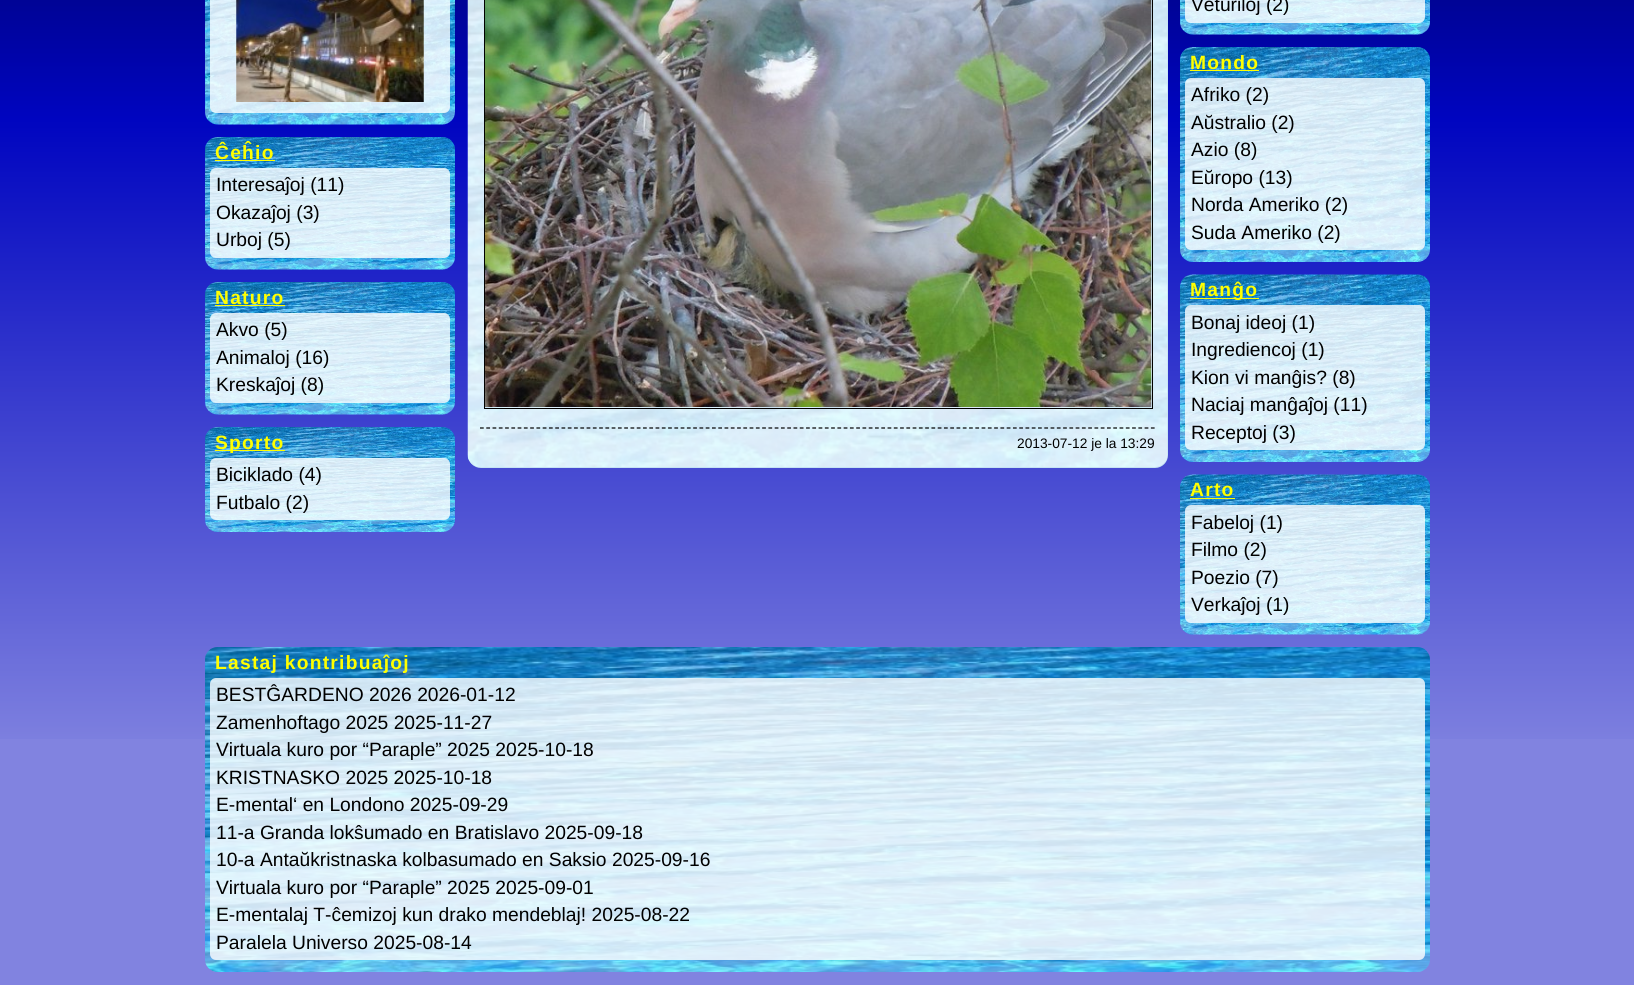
import math
import cairocffi as cairo

surface = cairo.ImageSurface(cairo.FORMAT_RGB24, 1634, 985)
cr = cairo.Context(surface)
options = cairo.FontOptions()
options.set_hint_metrics(cairo.HINT_METRICS_OFF)
options.set_hint_style(cairo.HINT_STYLE_NONE)
cr.set_font_options(options)
cr.set_miter_limit(4)


def use_color(code):
    cr.set_source_rgb(*(v / 255 for v in bytes.fromhex(code[-6:])))


def spaced_text(x, y, s, letter, word):
    cr.move_to(x, y)
    for ch in s:
        cr.show_text(ch)
        cr.rel_move_to(letter + word * (ch == ' '), 0)


def round_rect(x, y, w, h, r):
    cr.new_sub_path()
    for i, (u, v) in enumerate([(x + w - r, y + h - r), (x + r, y + h - r), (x + r, y + r), (x + w - r, y + r)]):
        cr.arc(u, v, r, i * math.pi / 2, (i + 1) * math.pi / 2)
    cr.close_path()


def picture(path, x, y, w, h):
    cr.save()
    cr.set_source_surface(cairo.ImageSurface.create_from_png(path), x, y)
    cr.rectangle(x, y, w, h)
    cr.fill()
    cr.restore()


use_color("#8183e0")
cr.paint()
picture("img1.png", 0, 0, 1634, 739)
picture("img2.png", 205, 0, 250, 125)
cr.set_source_rgba(1, 1, 1, 0.8)
round_rect(210, -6, 240, 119, 6)
cr.fill()
picture("img3.png", 236, 0, 188, 102)
picture("img4.png", 205, 137, 250, 133)
cr.select_font_face("Liberation Sans", cairo.FONT_SLANT_NORMAL, cairo.FONT_WEIGHT_BOLD)
cr.set_font_size(19.25)
use_color("#ffff00")
spaced_text(215, 159, "Ĉeĥio", 1.25, 0)
cr.rectangle(215, 160, 60, 1)
cr.fill()
cr.set_source_rgba(1, 1, 1, 0.8)
round_rect(210, 168, 240, 90, 6)
cr.fill()
cr.select_font_face("Liberation Sans")
use_color("#000000")
cr.move_to(216, 191)
cr.show_text("Interesaĵoj (11)")
cr.move_to(216, 219)
cr.show_text("Okazaĵoj (3)")
cr.move_to(216, 246)
cr.show_text("Urboj (5)")
picture("img5.png", 205, 282, 250, 133)
cr.select_font_face("Liberation Sans", cairo.FONT_SLANT_NORMAL, cairo.FONT_WEIGHT_BOLD)
use_color("#ffff00")
spaced_text(215, 304, "Naturo", 1.25, 0)
cr.rectangle(215, 305, 70, 1)
cr.fill()
cr.set_source_rgba(1, 1, 1, 0.8)
round_rect(210, 313, 240, 90, 6)
cr.fill()
cr.select_font_face("Liberation Sans")
use_color("#000000")
cr.move_to(216, 336)
cr.show_text("Akvo (5)")
cr.move_to(216, 364)
cr.show_text("Animaloj (16)")
cr.move_to(216, 391)
cr.show_text("Kreskaĵoj (8)")
picture("img6.png", 205, 427, 250, 105)
use_color("#ffff00")
cr.rectangle(215, 450, 70, 1)
cr.fill()
cr.select_font_face("Liberation Sans", cairo.FONT_SLANT_NORMAL, cairo.FONT_WEIGHT_BOLD)
spaced_text(215, 449, "Sporto", 1.25, 0)
cr.set_source_rgba(1, 1, 1, 0.8)
round_rect(210, 458, 240, 62, 6)
cr.fill()
cr.select_font_face("Liberation Sans")
use_color("#000000")
cr.move_to(216, 481)
cr.show_text("Biciklado (4)")
cr.move_to(216, 509)
cr.show_text("Futbalo (2)")
use_color("#c6e3f4")
round_rect(468, -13, 700, 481, 13)
cr.fill()
picture("img7.png", 467, 0, 701, 467)
cr.rectangle(484.5, -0.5, 668, 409)
use_color("#000000")
cr.set_line_width(1)
cr.stroke()
picture("img8.png", 485, 0, 667, 407)
cr.new_path()
cr.move_to(480, 428)
cr.line_to(1155, 428)
cr.set_line_width(1.2)
cr.set_dash([3.75, 2.52])
cr.stroke()
cr.set_font_size(13.75)
cr.move_to(1017, 448)
cr.show_text("2013-07-12 je la 13:29")
picture("img9.png", 1180, 0, 250, 35)
cr.set_source_rgba(1, 1, 1, 0.8)
round_rect(1185, -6, 240, 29, 6)
cr.fill()
cr.set_font_size(19.25)
use_color("#000000")
cr.move_to(1191, 11)
cr.show_text("Veturiloj (2)")
picture("img10.png", 1180, 47, 250, 215)
cr.select_font_face("Liberation Sans", cairo.FONT_SLANT_NORMAL, cairo.FONT_WEIGHT_BOLD)
use_color("#ffff00")
spaced_text(1190, 69, "Mondo", 1.25, 0)
cr.rectangle(1190, 70, 69, 1)
cr.fill()
cr.set_source_rgba(1, 1, 1, 0.8)
round_rect(1185, 78, 240, 172, 6)
cr.fill()
cr.select_font_face("Liberation Sans")
use_color("#000000")
cr.move_to(1191, 101)
cr.show_text("Afriko (2)")
cr.move_to(1191, 129)
cr.show_text("Aŭstralio (2)")
cr.move_to(1191, 156)
cr.show_text("Azio (8)")
cr.move_to(1191, 184)
cr.show_text("Eŭropo (13)")
cr.move_to(1191, 211)
cr.show_text("Norda Ameriko (2)")
cr.move_to(1191, 239)
cr.show_text("Suda Ameriko (2)")
picture("img11.png", 1180, 274, 250, 188)
use_color("#ffff00")
cr.rectangle(1190, 298, 69, 1)
cr.fill()
cr.select_font_face("Liberation Sans", cairo.FONT_SLANT_NORMAL, cairo.FONT_WEIGHT_BOLD)
spaced_text(1190, 296, "Manĝo", 1.25, 0)
cr.set_source_rgba(1, 1, 1, 0.8)
round_rect(1185, 305, 240, 145, 6)
cr.fill()
cr.select_font_face("Liberation Sans")
use_color("#000000")
cr.move_to(1191, 329)
cr.show_text("Bonaj ideoj (1)")
cr.move_to(1191, 356)
cr.show_text("Ingrediencoj (1)")
cr.move_to(1191, 384)
cr.show_text("Kion vi manĝis? (8)")
cr.move_to(1191, 411)
cr.show_text("Naciaj manĝaĵoj (11)")
cr.move_to(1191, 439)
cr.show_text("Receptoj (3)")
picture("img12.png", 1180, 474, 250, 161)
cr.select_font_face("Liberation Sans", cairo.FONT_SLANT_NORMAL, cairo.FONT_WEIGHT_BOLD)
use_color("#ffff00")
spaced_text(1190, 496, "Arto", 1.25, 0)
cr.rectangle(1190, 498, 45, 1)
cr.fill()
cr.set_source_rgba(1, 1, 1, 0.8)
round_rect(1185, 505, 240, 118, 6)
cr.fill()
cr.select_font_face("Liberation Sans")
use_color("#000000")
cr.move_to(1191, 529)
cr.show_text("Fabeloj (1)")
cr.move_to(1191, 556)
cr.show_text("Filmo (2)")
cr.move_to(1191, 584)
cr.show_text("Poezio (7)")
cr.move_to(1191, 611)
cr.show_text("Verkaĵoj (1)")
picture("img13.png", 205, 647, 1225, 325)
cr.select_font_face("Liberation Sans", cairo.FONT_SLANT_NORMAL, cairo.FONT_WEIGHT_BOLD)
use_color("#ffff00")
spaced_text(215, 669, "Lastaj kontribuaĵoj", 1.25, 0)
cr.set_source_rgba(1, 1, 1, 0.8)
round_rect(210, 678, 1215, 282, 6)
cr.fill()
cr.select_font_face("Liberation Sans")
use_color("#000000")
cr.move_to(216, 701)
cr.show_text("BESTĜARDENO 2026 2026-01-12")
cr.move_to(216, 729)
cr.show_text("Zamenhoftago 2025 2025-11-27")
cr.move_to(216, 756)
cr.show_text("Virtuala kuro por “Paraple” 2025 2025-10-18")
cr.move_to(216, 784)
cr.show_text("KRISTNASKO 2025 2025-10-18")
cr.move_to(216, 811)
cr.show_text("E-mental‘ en Londono 2025-09-29")
cr.move_to(216, 839)
cr.show_text("11-a Granda lokŝumado en Bratislavo 2025-09-18")
cr.move_to(216, 866)
cr.show_text("10-a Antaŭkristnaska kolbasumado en Saksio 2025-09-16")
cr.move_to(216, 894)
cr.show_text("Virtuala kuro por “Paraple” 2025 2025-09-01")
cr.move_to(216, 921)
cr.show_text("E-mentalaj T-ĉemizoj kun drako mendeblaj! 2025-08-22")
cr.move_to(216, 949)
cr.show_text("Paralela Universo 2025-08-14")
surface.write_to_png("result.png")
